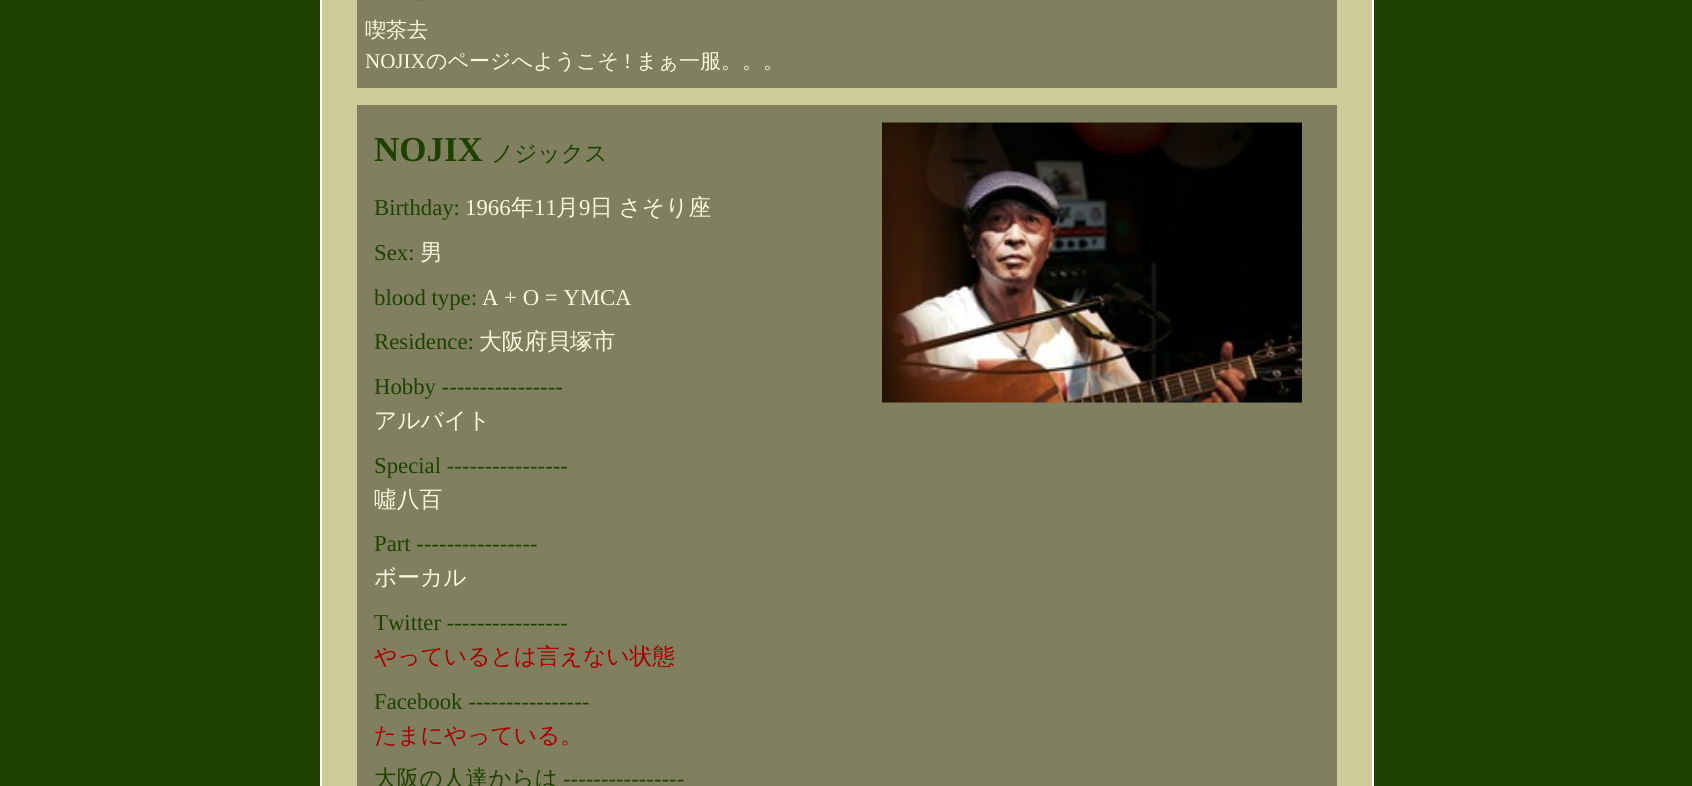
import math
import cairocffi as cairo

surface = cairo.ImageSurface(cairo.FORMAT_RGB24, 1692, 786)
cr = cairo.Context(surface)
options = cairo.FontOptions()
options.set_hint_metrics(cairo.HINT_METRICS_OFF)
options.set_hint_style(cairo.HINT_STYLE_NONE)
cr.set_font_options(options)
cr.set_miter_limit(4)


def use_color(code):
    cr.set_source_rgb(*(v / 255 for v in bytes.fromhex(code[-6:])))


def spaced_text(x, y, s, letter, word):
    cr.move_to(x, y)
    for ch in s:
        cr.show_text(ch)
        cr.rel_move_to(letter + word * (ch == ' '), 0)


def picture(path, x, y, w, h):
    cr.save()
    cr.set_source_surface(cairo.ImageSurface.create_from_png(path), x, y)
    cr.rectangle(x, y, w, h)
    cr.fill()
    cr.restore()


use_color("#1e4100")
cr.paint()
use_color("#cccc99")
cr.rectangle(322, 0, 1050, 786)
cr.fill()
use_color("#ffffff")
cr.rectangle(1372, 0, 2, 786)
cr.fill()
cr.rectangle(320, 0, 2, 786)
cr.fill()
use_color("#808060")
cr.rectangle(357, 0, 980, 88)
cr.fill()
picture("img1.png", 371, 0, 164, 1)
cr.select_font_face("WenQuanYi Zen Hei Medium")
cr.set_font_size(21)
use_color("#f7f7dd")
cr.move_to(365, 37)
cr.show_text("喫茶去")
cr.select_font_face("Liberation Serif")
cr.move_to(365, 68)
cr.show_text("NOJIX")
cr.select_font_face("WenQuanYi Zen Hei Medium")
cr.move_to(426, 68)
cr.show_text("のページへようこそ")
cr.select_font_face("Liberation Serif")
cr.move_to(624, 68)
cr.show_text("!")
cr.select_font_face("WenQuanYi Zen Hei Medium")
cr.move_to(636, 68)
cr.show_text("まぁ一服。。。")
use_color("#808060")
cr.rectangle(357, 105, 980, 681)
cr.fill()
cr.select_font_face("Liberation Serif", cairo.FONT_SLANT_NORMAL, cairo.FONT_WEIGHT_BOLD)
cr.set_font_size(35)
use_color("#1e4100")
cr.move_to(374, 161)
cr.show_text("NOJIX")
cr.select_font_face("WenQuanYi Zen Hei Medium")
cr.set_font_size(22.75)
cr.move_to(491, 161)
cr.show_text("ノジックス")
picture("img2.png", 882, 122, 420, 281)
cr.select_font_face("Liberation Serif")
cr.move_to(374, 215)
cr.show_text("Birthday:")
use_color("#f7f7dd")
cr.move_to(465, 215)
cr.show_text("1966")
cr.select_font_face("WenQuanYi Zen Hei Medium")
cr.move_to(511, 215)
cr.show_text("年")
cr.select_font_face("Liberation Serif")
cr.move_to(534, 215)
cr.show_text("11")
cr.select_font_face("WenQuanYi Zen Hei Medium")
cr.move_to(556, 215)
cr.show_text("月")
cr.select_font_face("Liberation Serif")
cr.move_to(579, 215)
cr.show_text("9")
cr.select_font_face("WenQuanYi Zen Hei Medium")
spaced_text(590, 215, "日 さそり座", 0, -1)
cr.select_font_face("Liberation Serif")
use_color("#1e4100")
cr.move_to(374, 260)
cr.show_text("Sex:")
cr.select_font_face("WenQuanYi Zen Hei Medium")
use_color("#f7f7dd")
cr.move_to(420, 260)
cr.show_text("男")
cr.select_font_face("Liberation Serif")
use_color("#1e4100")
cr.move_to(374, 305)
cr.show_text("blood type:")
use_color("#f7f7dd")
cr.move_to(482, 305)
cr.show_text("A + O = YMCA")
use_color("#1e4100")
cr.move_to(374, 349)
cr.show_text("Residence:")
cr.select_font_face("WenQuanYi Zen Hei Medium")
use_color("#f7f7dd")
cr.move_to(479, 349)
cr.show_text("大阪府貝塚市")
cr.select_font_face("Liberation Serif")
use_color("#1e4100")
cr.move_to(374, 394)
cr.show_text("Hobby ----------------")
cr.select_font_face("WenQuanYi Zen Hei Medium")
use_color("#f7f7dd")
cr.move_to(374, 428)
cr.show_text("アルバイト")
cr.select_font_face("Liberation Serif")
use_color("#1e4100")
cr.move_to(374, 473)
cr.show_text("Special ----------------")
cr.select_font_face("WenQuanYi Zen Hei Medium")
use_color("#f7f7dd")
cr.move_to(374, 507)
cr.show_text("噓八百")
cr.select_font_face("Liberation Serif")
use_color("#1e4100")
cr.move_to(374, 551)
cr.show_text("Part ----------------")
cr.select_font_face("WenQuanYi Zen Hei Medium")
use_color("#f7f7dd")
cr.move_to(374, 585)
cr.show_text("ボーカル")
cr.select_font_face("Liberation Serif")
use_color("#1e4100")
cr.move_to(374, 630)
cr.show_text("Twitter ----------------")
cr.select_font_face("WenQuanYi Zen Hei Medium")
use_color("#aa0000")
cr.move_to(374, 664)
cr.show_text("やっているとは言えない状態")
cr.select_font_face("Liberation Serif")
use_color("#1e4100")
cr.move_to(374, 709)
cr.show_text("Facebook ----------------")
cr.select_font_face("WenQuanYi Zen Hei Medium")
use_color("#aa0000")
cr.move_to(374, 743)
cr.show_text("たまにやっている。")
use_color("#1e4100")
cr.move_to(374, 786)
cr.show_text("大阪の人達からは")
cr.select_font_face("Liberation Serif")
cr.move_to(563, 786)
cr.show_text("----------------")
surface.write_to_png("result.png")
